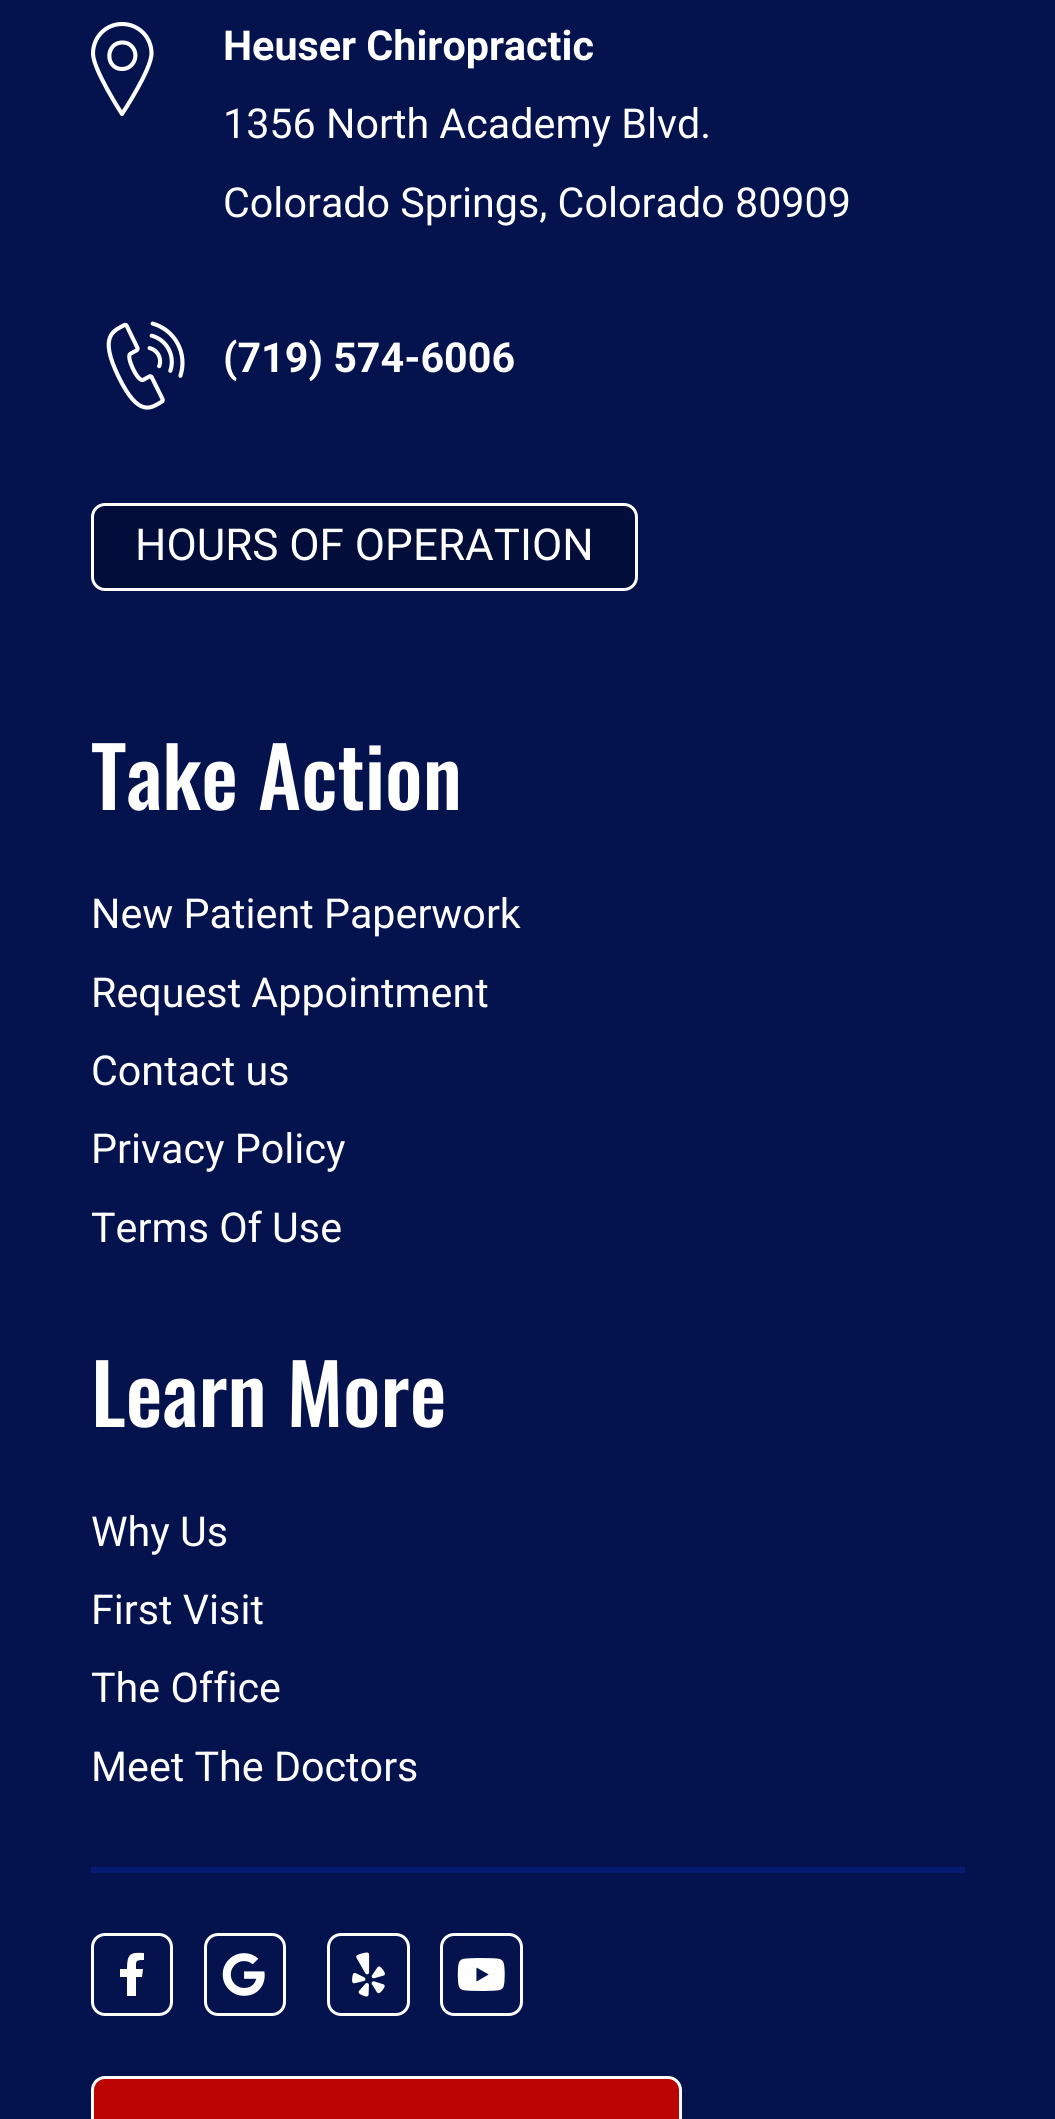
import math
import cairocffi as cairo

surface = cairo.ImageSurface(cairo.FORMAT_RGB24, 1055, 2119)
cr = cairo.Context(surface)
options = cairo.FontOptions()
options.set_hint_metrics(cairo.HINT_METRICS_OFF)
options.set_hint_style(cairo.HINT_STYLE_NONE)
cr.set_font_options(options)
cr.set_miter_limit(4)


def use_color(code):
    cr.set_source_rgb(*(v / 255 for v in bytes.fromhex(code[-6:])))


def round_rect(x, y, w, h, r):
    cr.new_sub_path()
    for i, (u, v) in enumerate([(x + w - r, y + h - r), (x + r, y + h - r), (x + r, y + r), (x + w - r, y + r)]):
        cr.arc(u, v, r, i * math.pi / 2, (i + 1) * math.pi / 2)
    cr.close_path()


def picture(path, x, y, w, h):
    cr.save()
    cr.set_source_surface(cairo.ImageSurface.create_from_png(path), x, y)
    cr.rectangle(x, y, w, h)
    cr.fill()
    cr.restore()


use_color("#04124d")
cr.paint()
cr.new_path()
cr.move_to(151.5, 53.5)
cr.curve_to(151.5, 69.5, 122, 114, 122, 114)
cr.curve_to(122, 114, 93, 69.5, 93, 53.5)
cr.curve_to(93, 37, 106, 24, 122, 24)
cr.curve_to(138.5, 24, 151.5, 37, 151.5, 53.5)
cr.close_path()
use_color("#ffffff")
cr.set_line_width(4.1)
cr.set_line_join(cairo.LINE_JOIN_ROUND)
cr.stroke()
cr.new_path()
cr.move_to(122, 69)
cr.curve_to(105, 69, 105, 42.5, 122.5, 42.5)
cr.curve_to(125, 42.5, 127.5, 43, 129.5, 44.5)
cr.curve_to(140.5, 52, 135, 69, 122, 69)
cr.close_path()
cr.set_line_cap(cairo.LINE_CAP_ROUND)
cr.stroke()
cr.select_font_face("Roboto", cairo.FONT_SLANT_NORMAL, cairo.FONT_WEIGHT_BOLD)
cr.set_font_size(41.25)
cr.move_to(223, 60)
cr.show_text("Heuser Chiropractic")
cr.select_font_face("Roboto")
cr.move_to(223, 138)
cr.show_text("1356 North Academy Blvd.")
cr.move_to(223, 217)
cr.show_text("Colorado Springs, Colorado 80909")
picture("img1.png", 106, 321, 79, 89)
cr.select_font_face("Roboto", cairo.FONT_SLANT_NORMAL, cairo.FONT_WEIGHT_BOLD)
cr.move_to(223, 372)
cr.show_text("(719) 574-6006")
use_color("#020d39")
round_rect(92.5, 504.5, 544, 85, 12.5)
cr.fill_preserve()
use_color("#ffffff")
cr.set_line_width(3)
cr.set_line_cap(cairo.LINE_CAP_BUTT)
cr.set_line_join(cairo.LINE_JOIN_MITER)
cr.stroke()
cr.select_font_face("Roboto")
cr.set_font_size(44)
cr.move_to(135, 560)
cr.show_text("HOURS OF OPERATION")
cr.select_font_face("Oswald Medium")
cr.set_font_size(82.5)
cr.move_to(91, 810)
cr.show_text("Take Action")
cr.select_font_face("Roboto")
cr.set_font_size(41.25)
cr.move_to(91, 928)
cr.show_text("New Patient Paperwork")
cr.move_to(91, 1007)
cr.show_text("Request Appointment")
cr.move_to(91, 1085)
cr.show_text("Contact us")
cr.move_to(91, 1163)
cr.show_text("Privacy Policy")
cr.move_to(91, 1242)
cr.show_text("Terms Of Use")
cr.select_font_face("Oswald Medium")
cr.set_font_size(82.5)
cr.move_to(91, 1427)
cr.show_text("Learn More")
cr.select_font_face("Roboto")
cr.set_font_size(41.25)
cr.move_to(91, 1546)
cr.show_text("Why Us")
cr.move_to(91, 1624)
cr.show_text("First Visit")
cr.move_to(91, 1702)
cr.show_text("The Office")
cr.move_to(91, 1781)
cr.show_text("Meet The Doctors")
use_color("#061b74")
cr.rectangle(91, 1867, 874, 6)
cr.fill()
round_rect(92.5, 1934.5, 79, 80, 12.5)
use_color("#ffffff")
cr.stroke()
cr.new_path()
cr.move_to(142, 1977)
cr.line_to(136, 1977)
cr.line_to(136, 1996)
cr.line_to(127, 1996)
cr.line_to(127, 1977)
cr.line_to(120, 1977)
cr.line_to(120, 1969)
cr.line_to(127, 1969)
cr.curve_to(127, 1954, 130, 1952, 144, 1953)
cr.line_to(144, 1960)
cr.curve_to(135, 1960, 136, 1961, 136, 1969)
cr.line_to(143, 1969)
cr.close_path()
cr.fill()
round_rect(205.5, 1934.5, 79, 80, 12.5)
cr.stroke()
picture("img2.png", 222, 1953, 43, 43)
round_rect(328.5, 1934.5, 80, 80, 12.5)
cr.stroke()
picture("img3.png", 352, 1952, 33, 45)
round_rect(441.5, 1934.5, 80, 80, 12.5)
cr.stroke()
picture("img4.png", 457, 1958, 48, 33)
use_color("#bc0404")
round_rect(92.5, 2077.5, 588, 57, 12.5)
cr.fill_preserve()
use_color("#ffffff")
cr.stroke()
surface.write_to_png("result.png")
